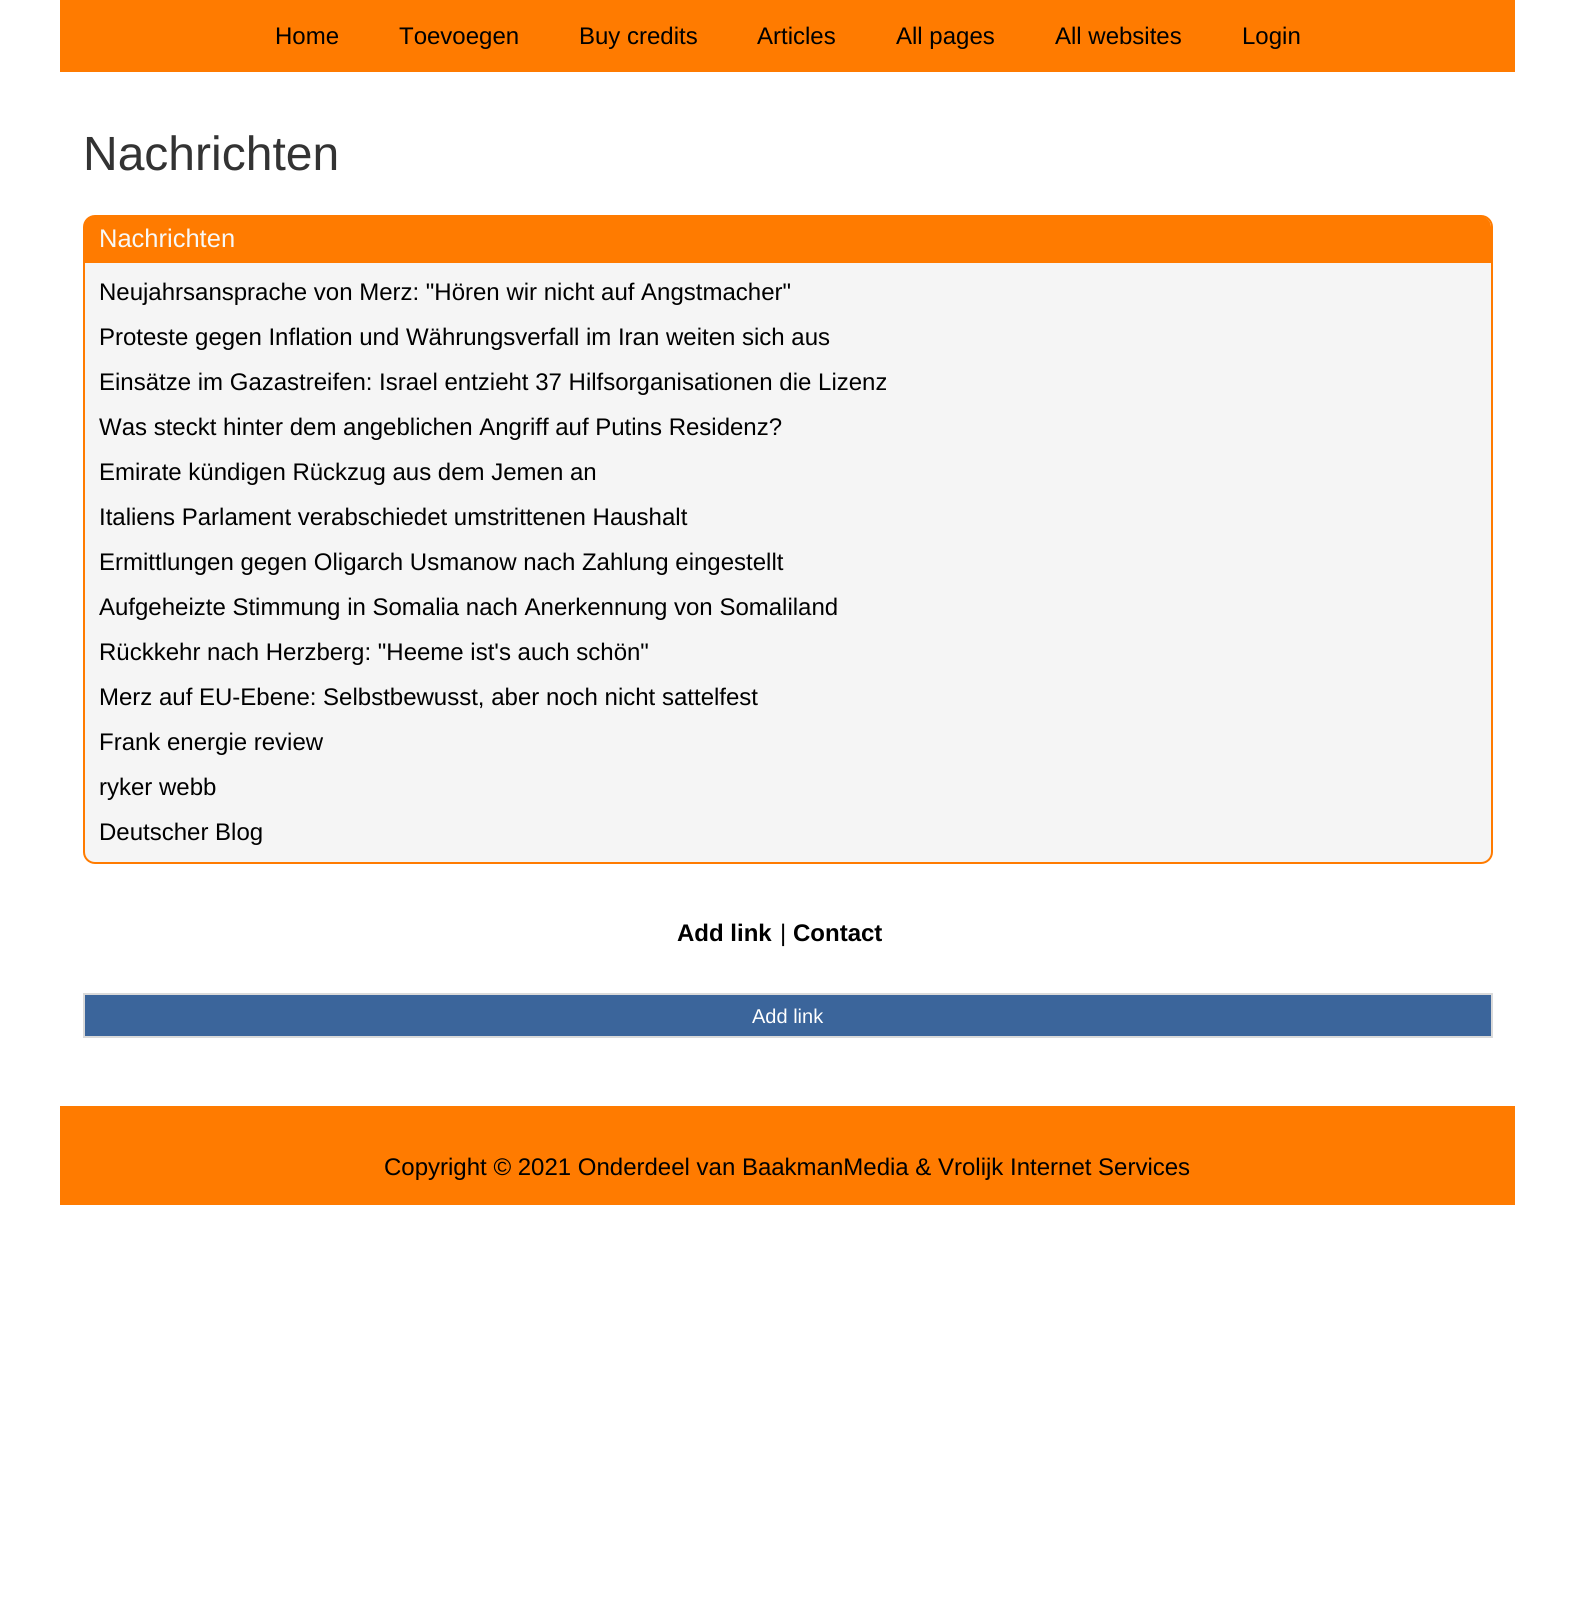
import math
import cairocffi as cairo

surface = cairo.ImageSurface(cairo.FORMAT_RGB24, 1574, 1600)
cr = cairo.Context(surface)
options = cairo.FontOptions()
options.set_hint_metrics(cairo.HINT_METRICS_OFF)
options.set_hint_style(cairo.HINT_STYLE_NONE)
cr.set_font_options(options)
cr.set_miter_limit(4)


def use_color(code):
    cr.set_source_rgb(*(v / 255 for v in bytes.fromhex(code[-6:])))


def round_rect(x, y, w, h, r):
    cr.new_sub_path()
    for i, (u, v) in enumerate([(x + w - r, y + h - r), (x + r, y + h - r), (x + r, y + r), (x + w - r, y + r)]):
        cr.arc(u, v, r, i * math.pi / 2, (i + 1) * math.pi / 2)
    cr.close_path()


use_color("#ffffff")
cr.paint()
use_color("#ff7b00")
cr.rectangle(60, 0, 1455, 72)
cr.fill()
cr.select_font_face("Liberation Sans")
cr.set_font_size(24)
use_color("#000000")
cr.move_to(275, 44)
cr.show_text("Home")
cr.move_to(399, 44)
cr.show_text("Toevoegen")
cr.move_to(579, 44)
cr.show_text("Buy credits")
cr.move_to(757, 44)
cr.show_text("Articles")
cr.move_to(896, 44)
cr.show_text("All pages")
cr.move_to(1055, 44)
cr.show_text("All websites")
cr.move_to(1242, 44)
cr.show_text("Login")
cr.set_font_size(48)
use_color("#333333")
cr.move_to(83, 170)
cr.show_text("Nachrichten")
use_color("#f5f5f5")
round_rect(84, 216, 1408, 647, 11)
cr.fill_preserve()
use_color("#ff7b00")
cr.stroke()
cr.new_path()
cr.move_to(95, 216)
cr.line_to(1480, 216)
cr.curve_to(1486, 216, 1491, 221, 1491, 227)
cr.line_to(1491, 263)
cr.line_to(84, 263)
cr.line_to(84, 227)
cr.curve_to(84, 221, 89, 216, 95, 216)
cr.close_path()
cr.fill()
cr.set_font_size(25.5)
use_color("#f8f8f7")
cr.move_to(99, 247)
cr.show_text("Nachrichten")
cr.set_font_size(24)
use_color("#000000")
cr.move_to(99, 300)
cr.show_text("Neujahrsansprache von Merz: \"Hören wir nicht auf Angstmacher\"")
cr.move_to(99, 345)
cr.show_text("Proteste gegen Inflation und Währungsverfall im Iran weiten sich aus")
cr.move_to(99, 390)
cr.show_text("Einsätze im Gazastreifen: Israel entzieht 37 Hilfsorganisationen die Lizenz")
cr.move_to(99, 435)
cr.show_text("Was steckt hinter dem angeblichen Angriff auf Putins Residenz?")
cr.move_to(99, 480)
cr.show_text("Emirate kündigen Rückzug aus dem Jemen an")
cr.move_to(99, 525)
cr.show_text("Italiens Parlament verabschiedet umstrittenen Haushalt")
cr.move_to(99, 570)
cr.show_text("Ermittlungen gegen Oligarch Usmanow nach Zahlung eingestellt")
cr.move_to(99, 615)
cr.show_text("Aufgeheizte Stimmung in Somalia nach Anerkennung von Somaliland")
cr.move_to(99, 660)
cr.show_text("Rückkehr nach Herzberg: \"Heeme ist's auch schön\"")
cr.move_to(99, 705)
cr.show_text("Merz auf EU-Ebene: Selbstbewusst, aber noch nicht sattelfest")
cr.move_to(99, 750)
cr.show_text("Frank energie review")
cr.move_to(99, 795)
cr.show_text("ryker webb")
cr.move_to(99, 840)
cr.show_text("Deutscher Blog")
cr.select_font_face("Liberation Sans", cairo.FONT_SLANT_NORMAL, cairo.FONT_WEIGHT_BOLD)
cr.move_to(677, 941)
cr.show_text("Add link")
cr.select_font_face("Liberation Sans")
cr.move_to(780, 941)
cr.show_text("|")
cr.select_font_face("Liberation Sans", cairo.FONT_SLANT_NORMAL, cairo.FONT_WEIGHT_BOLD)
cr.move_to(793, 941)
cr.show_text("Contact")
use_color("#3b659b")
cr.rectangle(84, 994, 1408, 43)
cr.fill_preserve()
use_color("#dadada")
cr.stroke()
cr.select_font_face("Liberation Sans")
cr.set_font_size(20)
use_color("#ffffff")
cr.move_to(752, 1023)
cr.show_text("Add link")
use_color("#ff7b00")
cr.rectangle(60, 1106, 1455, 99)
cr.fill()
cr.set_font_size(24)
use_color("#000000")
cr.move_to(384, 1175)
cr.show_text("Copyright © 2021 Onderdeel van BaakmanMedia & Vrolijk Internet Services")
surface.write_to_png("result.png")
